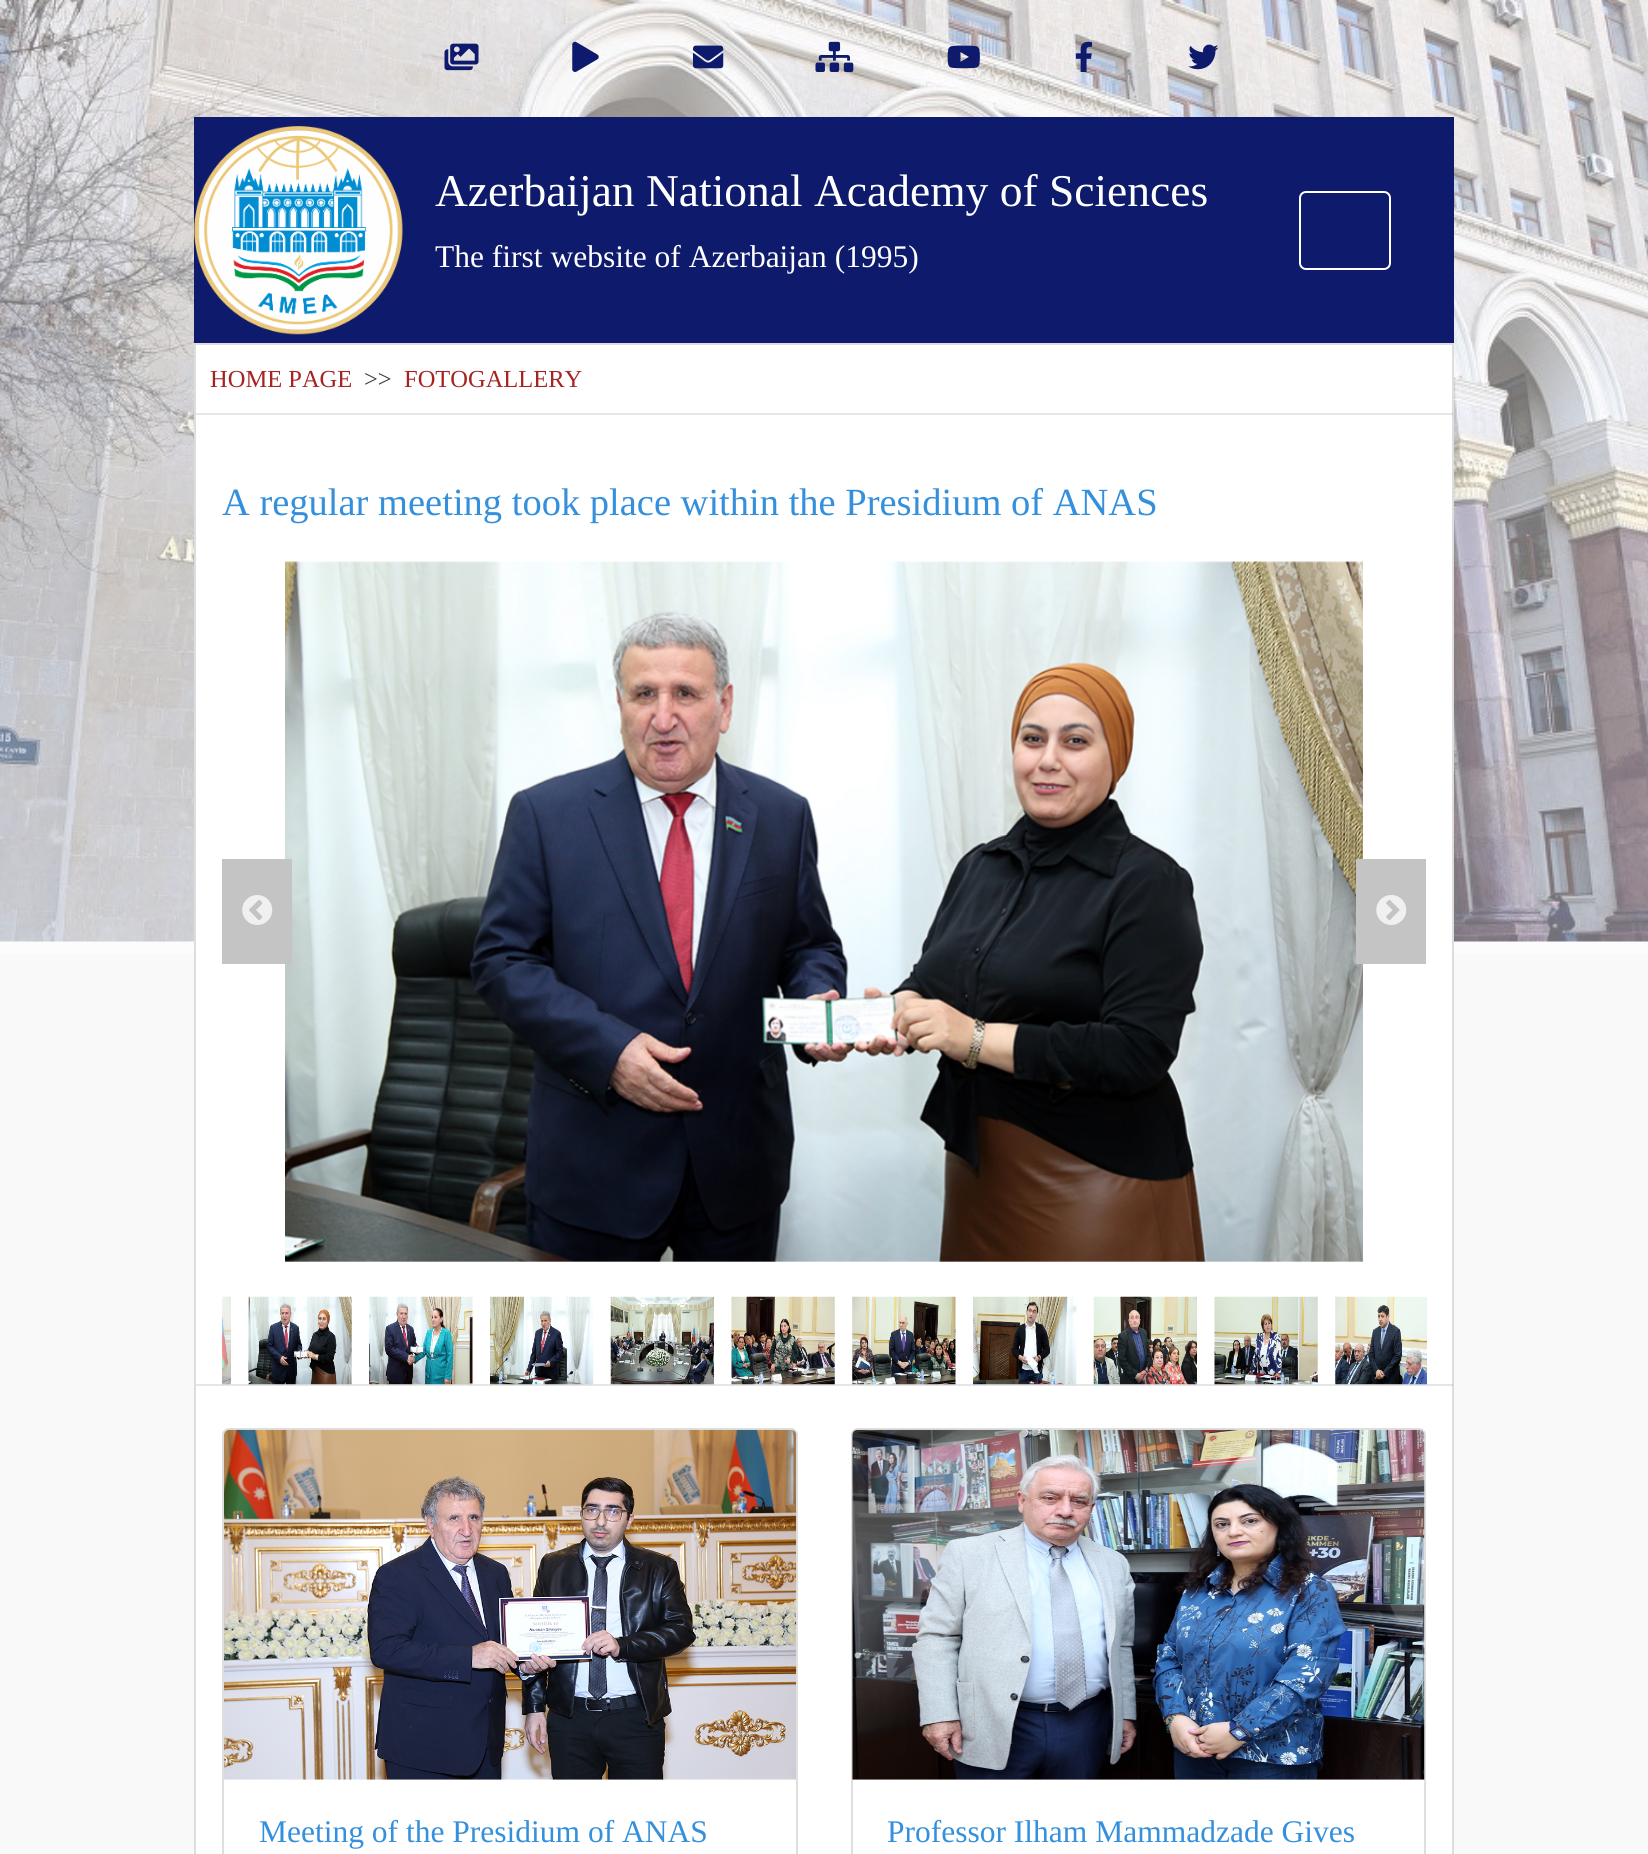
import math
import cairocffi as cairo

surface = cairo.ImageSurface(cairo.FORMAT_RGB24, 1648, 1854)
cr = cairo.Context(surface)
options = cairo.FontOptions()
options.set_hint_metrics(cairo.HINT_METRICS_OFF)
options.set_hint_style(cairo.HINT_STYLE_NONE)
cr.set_font_options(options)
cr.set_miter_limit(4)


def use_color(code):
    cr.set_source_rgb(*(v / 255 for v in bytes.fromhex(code[-6:])))


def round_rect(x, y, w, h, r):
    cr.new_sub_path()
    for i, (u, v) in enumerate([(x + w - r, y + h - r), (x + r, y + h - r), (x + r, y + r), (x + w - r, y + r)]):
        cr.arc(u, v, r, i * math.pi / 2, (i + 1) * math.pi / 2)
    cr.close_path()


def picture(path, x, y, w, h):
    cr.save()
    cr.set_source_surface(cairo.ImageSurface.create_from_png(path), x, y)
    cr.rectangle(x, y, w, h)
    cr.fill()
    cr.restore()


use_color("#f9f9f9")
cr.paint()
use_color("#fcfcfc")
cr.rectangle(0, 941, 1648, 13)
cr.fill()
picture("img1.png", 0, 0, 1648, 942)
picture("img2.png", 444, 43, 35, 28)
picture("img3.png", 572, 41, 27, 31)
picture("img4.png", 693, 45, 31, 24)
picture("img5.png", 815, 41, 39, 31)
picture("img6.png", 947, 45, 33, 24)
picture("img7.png", 1075, 41, 18, 31)
picture("img8.png", 1188, 44, 31, 26)
use_color("#0e1a6b")
cr.rectangle(194, 117, 1260, 226)
cr.fill()
picture("img9.png", 194, 126, 209, 209)
cr.select_font_face("Liberation Serif")
cr.set_font_size(45.5)
use_color("#ffffff")
cr.move_to(435, 206)
cr.show_text("Azerbaijan National Academy of Sciences")
cr.set_font_size(31.5)
cr.move_to(435, 267)
cr.show_text("The first website of Azerbaijan (1995)")
round_rect(1300, 192, 90, 77, 6)
cr.stroke()
cr.rectangle(195, 344, 1258, 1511)
cr.fill_preserve()
use_color("#dddddd")
cr.stroke()
cr.set_font_size(24.5)
use_color("#a62321")
cr.move_to(210, 387)
cr.show_text("HOME PAGE")
use_color("#343a40")
cr.move_to(364, 387)
cr.show_text(">>")
use_color("#a62321")
cr.move_to(404, 387)
cr.show_text("FOTOGALLERY")
cr.set_source_rgba(0, 0, 0, 0.1)
cr.rectangle(196, 413, 1257, 2)
cr.fill()
cr.set_font_size(38.5)
use_color("#3490dc")
cr.move_to(222, 515)
cr.show_text("A regular meeting took place within the Presidium of ANAS")
picture("img11.png", 285, 561, 1078, 701)
use_color("#c4c4c4")
cr.rectangle(222, 859, 70, 105)
cr.fill()
picture("img10.png", 242, 895, 31, 30)
cr.rectangle(1356, 859, 70, 105)
cr.fill()
picture("img12.png", 1376, 895, 31, 30)
picture("img13.png", 222, 1296, 9, 89)
picture("img14.png", 248, 1296, 104, 89)
picture("img15.png", 369, 1296, 104, 89)
picture("img16.png", 490, 1296, 104, 89)
picture("img17.png", 610, 1296, 104, 89)
picture("img18.png", 731, 1296, 104, 89)
picture("img19.png", 852, 1296, 104, 89)
picture("img20.png", 973, 1296, 104, 89)
picture("img21.png", 1093, 1296, 104, 89)
picture("img22.png", 1214, 1296, 104, 89)
picture("img23.png", 1335, 1296, 92, 89)
cr.set_source_rgba(0, 0, 0, 0.1)
cr.rectangle(196, 1384, 1257, 2)
cr.fill()
round_rect(223, 1429, 574, 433, 6)
use_color("#dfdfdf")
cr.stroke()
picture("img24.png", 224, 1429, 573, 351)
cr.set_font_size(31.5)
use_color("#3490dc")
cr.move_to(259, 1842)
cr.show_text("Meeting of the Presidium of ANAS")
round_rect(852, 1429, 573, 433, 6)
use_color("#dfdfdf")
cr.stroke()
picture("img25.png", 852, 1429, 573, 351)
use_color("#3490dc")
cr.move_to(887, 1842)
cr.show_text("Professor Ilham Mammadzade Gives")
surface.write_to_png("result.png")
